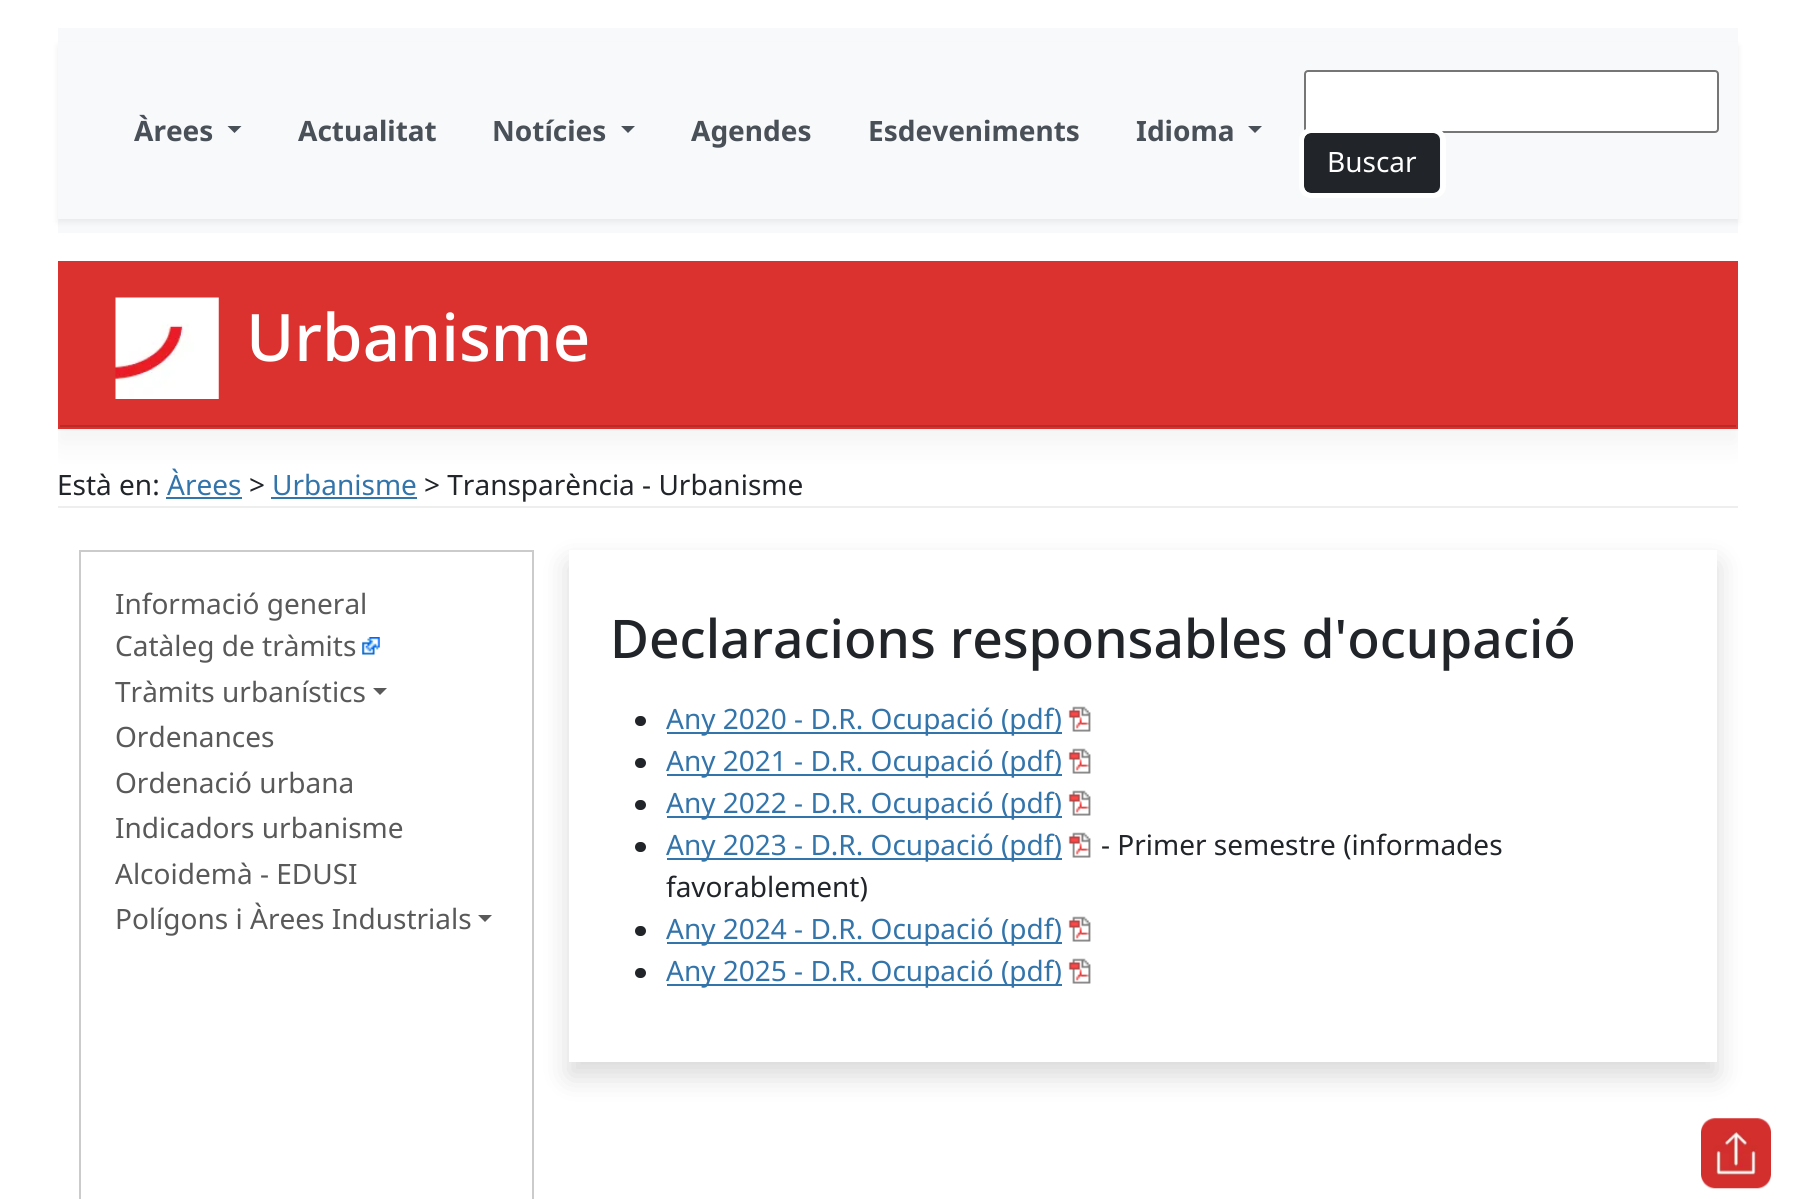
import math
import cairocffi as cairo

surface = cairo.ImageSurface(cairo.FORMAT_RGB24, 1793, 1199)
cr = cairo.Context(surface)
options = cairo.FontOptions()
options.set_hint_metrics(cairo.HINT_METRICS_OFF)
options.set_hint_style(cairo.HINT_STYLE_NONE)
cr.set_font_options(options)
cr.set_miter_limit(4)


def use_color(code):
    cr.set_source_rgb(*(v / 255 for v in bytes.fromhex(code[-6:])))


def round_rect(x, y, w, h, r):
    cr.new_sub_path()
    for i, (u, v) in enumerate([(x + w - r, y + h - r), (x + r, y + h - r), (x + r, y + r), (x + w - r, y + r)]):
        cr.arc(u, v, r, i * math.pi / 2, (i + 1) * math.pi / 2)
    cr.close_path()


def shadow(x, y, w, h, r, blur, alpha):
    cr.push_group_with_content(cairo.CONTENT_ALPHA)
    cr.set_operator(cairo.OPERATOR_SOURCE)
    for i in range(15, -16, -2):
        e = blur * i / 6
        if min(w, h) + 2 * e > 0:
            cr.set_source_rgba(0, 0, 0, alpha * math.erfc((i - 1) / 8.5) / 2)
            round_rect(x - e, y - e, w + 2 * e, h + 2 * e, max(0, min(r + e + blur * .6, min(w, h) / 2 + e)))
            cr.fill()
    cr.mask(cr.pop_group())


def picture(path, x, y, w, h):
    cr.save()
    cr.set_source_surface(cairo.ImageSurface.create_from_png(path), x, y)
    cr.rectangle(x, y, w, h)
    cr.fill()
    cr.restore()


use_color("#ffffff")
cr.paint()
use_color("#f8f9fa")
cr.rectangle(58, 28, 1680, 205)
cr.fill()
cr.save()
cr.set_fill_rule(cairo.FILL_RULE_EVEN_ODD)
cr.new_path()
cr.move_to(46, 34)
cr.line_to(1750, 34)
cr.line_to(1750, 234)
cr.line_to(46, 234)
cr.close_path()
cr.move_to(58, 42)
cr.line_to(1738, 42)
cr.line_to(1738, 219)
cr.line_to(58, 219)
cr.close_path()
cr.clip()
use_color("#000000")
shadow(58, 46, 1680, 176, 0, 3.5, 0.07)
cr.restore()
cr.select_font_face("Noto Sans", cairo.FONT_SLANT_NORMAL, cairo.FONT_WEIGHT_BOLD)
cr.set_font_size(28)
use_color("#495057")
cr.move_to(134, 141)
cr.show_text("Àrees")
cr.new_path()
cr.move_to(227.5, 126)
cr.line_to(241.5, 126)
cr.line_to(234.5, 133)
cr.close_path()
cr.fill()
cr.move_to(298, 141)
cr.show_text("Actualitat")
cr.move_to(492, 141)
cr.show_text("Notícies")
cr.new_path()
cr.move_to(621, 126)
cr.line_to(635, 126)
cr.line_to(628, 133)
cr.close_path()
cr.fill()
cr.move_to(691, 141)
cr.show_text("Agendes")
cr.move_to(868, 141)
cr.show_text("Esdeveniments")
cr.move_to(1136, 141)
cr.show_text("Idioma")
cr.new_path()
cr.move_to(1248, 126)
cr.line_to(1262, 126)
cr.line_to(1255, 133)
cr.close_path()
cr.fill()
use_color("#ffffff")
round_rect(1305, 71, 413, 61, 3)
cr.fill_preserve()
use_color("#767676")
cr.stroke()
use_color("#212529")
round_rect(1305, 134, 134, 58, 6)
cr.fill_preserve()
cr.stroke()
round_rect(1301.5, 130.5, 142, 65, 9.5)
use_color("#ffffff")
cr.set_line_width(5)
cr.stroke()
cr.select_font_face("Noto Sans")
cr.move_to(1327, 172)
cr.show_text("Buscar")
cr.save()
cr.rectangle(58, 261, 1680, 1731)
cr.clip()
use_color("#000000")
shadow(58, 275, 1680, 168, 0, 14, 0.05)
cr.restore()
use_color("#db322f")
cr.rectangle(58, 261, 1680, 168)
cr.fill()
use_color("#ba2b28")
cr.rectangle(60, 425, 1676, 2)
cr.fill()
picture("img1.png", 115, 297, 104, 102)
cr.select_font_face("Noto Sans Medium")
cr.set_font_size(65.5)
use_color("#ffffff")
cr.move_to(246, 361)
cr.show_text("Urbanisme")
use_color("#eeeeee")
cr.rectangle(58, 506, 1680, 2)
cr.fill()
cr.select_font_face("Noto Sans")
cr.set_font_size(28)
use_color("#212529")
cr.move_to(57, 495)
cr.show_text("Està en:")
use_color("#3374ab")
cr.move_to(167, 495)
cr.show_text("Àrees")
cr.rectangle(166, 497, 76, 2)
cr.fill()
use_color("#212529")
cr.move_to(249, 495)
cr.show_text(">")
use_color("#3374ab")
cr.move_to(272, 495)
cr.show_text("Urbanisme")
cr.rectangle(271, 497, 146, 2)
cr.fill()
use_color("#212529")
cr.move_to(424, 495)
cr.show_text("> Transparència - Urbanisme")
cr.rectangle(80, 551, 453, 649)
use_color("#cbcbcb")
cr.set_line_width(2)
cr.stroke()
use_color("#595959")
cr.move_to(115, 614)
cr.show_text("Informació general")
cr.move_to(115, 656)
cr.show_text("Catàleg de tràmits")
picture("img2.png", 362, 637, 18, 18)
cr.move_to(115, 702)
cr.show_text("Tràmits urbanístics")
cr.new_path()
cr.move_to(373, 688)
cr.line_to(387, 688)
cr.line_to(380, 695)
cr.close_path()
cr.fill()
cr.move_to(115, 747)
cr.show_text("Ordenances")
cr.move_to(115, 793)
cr.show_text("Ordenació urbana")
cr.move_to(115, 838)
cr.show_text("Indicadors urbanisme")
cr.move_to(115, 884)
cr.show_text("Alcoidemà - EDUSI")
cr.move_to(115, 929)
cr.show_text("Polígons i Àrees Industrials")
cr.new_path()
cr.move_to(478, 915)
cr.line_to(492, 915)
cr.line_to(485, 922)
cr.close_path()
cr.fill()
cr.save()
cr.set_fill_rule(cairo.FILL_RULE_EVEN_ODD)
cr.new_path()
cr.move_to(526, 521)
cr.line_to(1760, 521)
cr.line_to(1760, 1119)
cr.line_to(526, 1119)
cr.close_path()
cr.move_to(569, 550)
cr.line_to(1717, 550)
cr.line_to(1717, 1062)
cr.line_to(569, 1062)
cr.close_path()
cr.clip()
use_color("#000000")
shadow(569, 564, 1148, 512, 0, 14, 0.15)
cr.restore()
cr.select_font_face("Noto Sans Medium")
cr.set_font_size(53.25)
use_color("#212529")
cr.move_to(610, 658)
cr.show_text("Declaracions responsables d'ocupació")
round_rect(635, 716, 11, 10, 5)
cr.fill()
use_color("#3374ab")
cr.rectangle(667, 732, 395, 2)
cr.fill()
cr.select_font_face("Noto Sans")
cr.set_font_size(28)
cr.move_to(666, 729)
cr.show_text("Any 2020 - D.R. Ocupació (pdf)")
picture("img3.png", 1068, 706, 23, 26)
use_color("#212529")
round_rect(635, 758, 11, 10, 5)
cr.fill()
use_color("#3374ab")
cr.rectangle(667, 774, 395, 2)
cr.fill()
cr.move_to(666, 771)
cr.show_text("Any 2021 - D.R. Ocupació (pdf)")
picture("img4.png", 1068, 748, 23, 26)
use_color("#212529")
round_rect(635, 800, 11, 10, 5)
cr.fill()
use_color("#3374ab")
cr.rectangle(667, 816, 395, 2)
cr.fill()
cr.move_to(666, 813)
cr.show_text("Any 2022 - D.R. Ocupació (pdf)")
picture("img3.png", 1068, 790, 23, 26)
use_color("#212529")
round_rect(635, 842, 11, 10, 5)
cr.fill()
use_color("#3374ab")
cr.rectangle(667, 858, 395, 2)
cr.fill()
cr.move_to(666, 855)
cr.show_text("Any 2023 - D.R. Ocupació (pdf)")
picture("img4.png", 1068, 832, 23, 26)
use_color("#212529")
cr.move_to(1101, 855)
cr.show_text("- Primer semestre (informades")
cr.move_to(666, 897)
cr.show_text("favorablement)")
round_rect(635, 926, 11, 10, 5)
cr.fill()
use_color("#3374ab")
cr.rectangle(667, 942, 395, 2)
cr.fill()
cr.move_to(666, 939)
cr.show_text("Any 2024 - D.R. Ocupació (pdf)")
picture("img3.png", 1068, 916, 23, 26)
use_color("#212529")
round_rect(635, 968, 11, 10, 5)
cr.fill()
use_color("#3374ab")
cr.rectangle(667, 984, 395, 2)
cr.fill()
cr.move_to(666, 981)
cr.show_text("Any 2025 - D.R. Ocupació (pdf)")
picture("img4.png", 1068, 958, 23, 26)
picture("img5.png", 1701, 1118, 70, 71)
surface.write_to_png("result.png")
